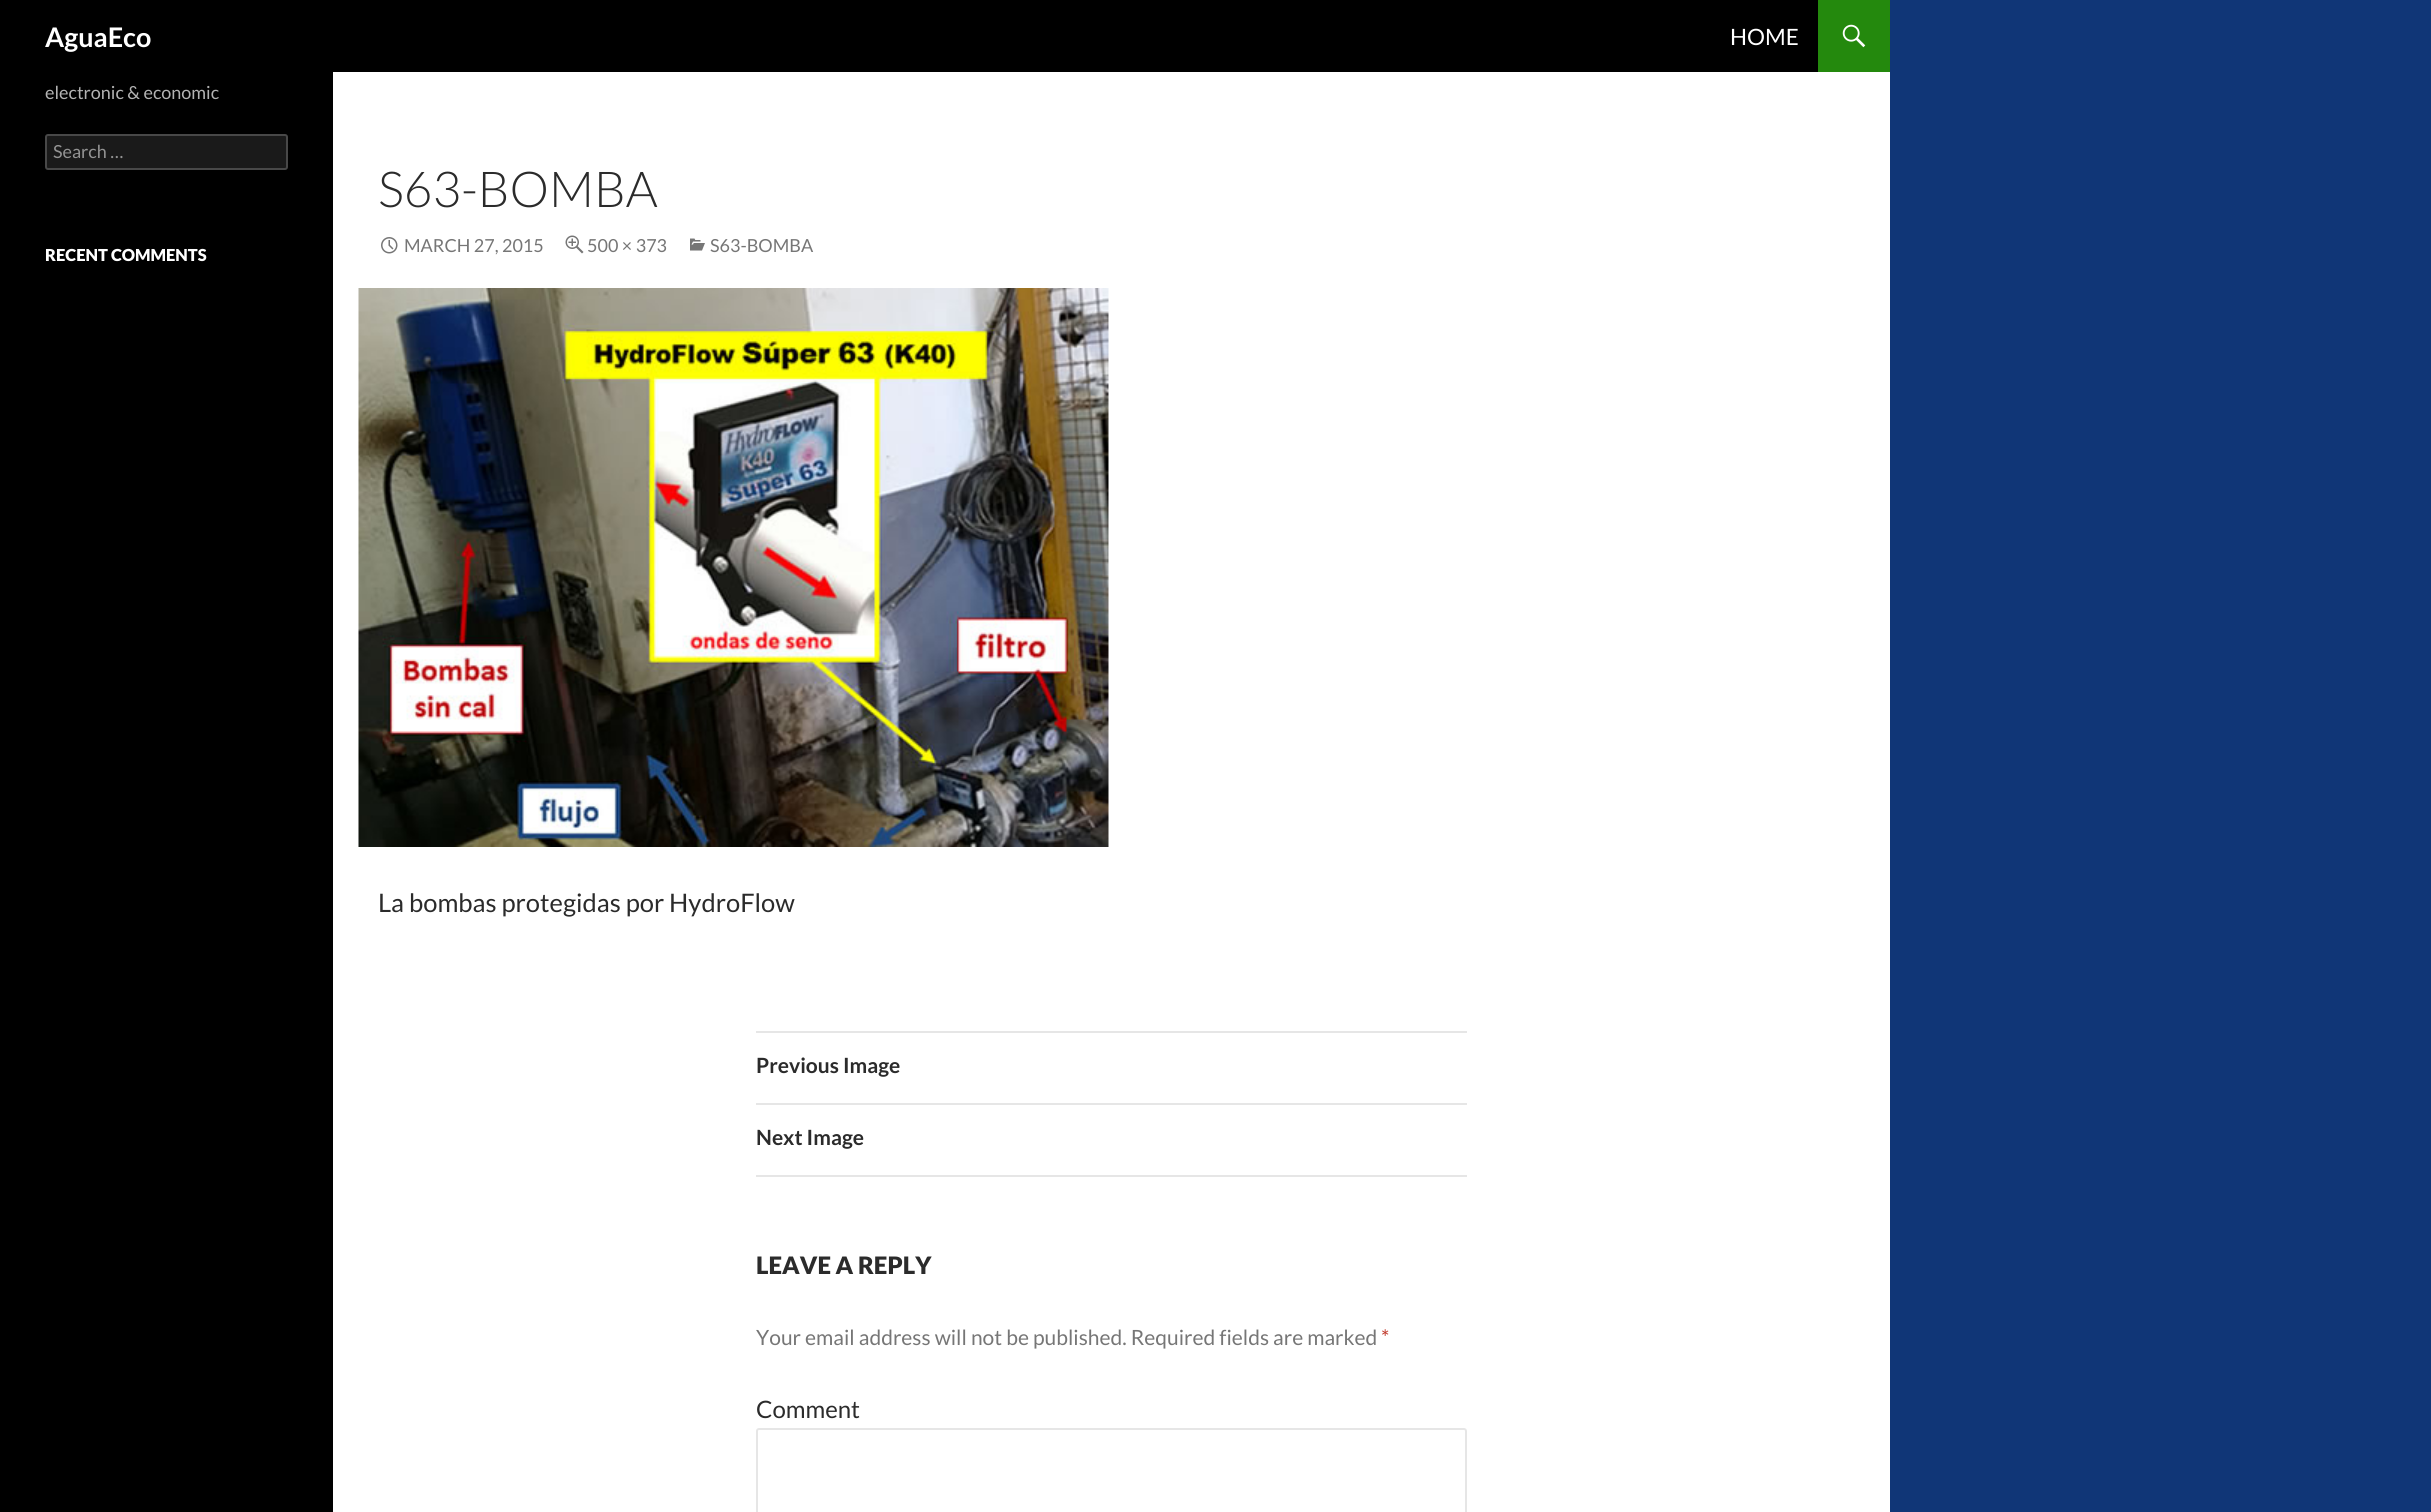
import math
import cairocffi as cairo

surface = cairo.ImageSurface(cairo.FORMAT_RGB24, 2431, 1512)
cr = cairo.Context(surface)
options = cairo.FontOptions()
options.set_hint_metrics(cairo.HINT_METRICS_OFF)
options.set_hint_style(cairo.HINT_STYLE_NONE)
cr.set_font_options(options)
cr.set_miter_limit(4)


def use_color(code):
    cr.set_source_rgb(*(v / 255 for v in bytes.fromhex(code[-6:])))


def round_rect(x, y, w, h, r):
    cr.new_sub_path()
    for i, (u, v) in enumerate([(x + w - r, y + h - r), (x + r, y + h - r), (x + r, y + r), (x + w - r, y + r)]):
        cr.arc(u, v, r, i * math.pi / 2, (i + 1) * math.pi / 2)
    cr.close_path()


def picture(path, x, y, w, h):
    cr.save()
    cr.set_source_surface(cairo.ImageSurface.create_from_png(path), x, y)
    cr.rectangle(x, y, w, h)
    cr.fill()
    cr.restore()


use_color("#103677")
cr.paint()
use_color("#ffffff")
cr.rectangle(333, 72, 1557, 1440)
cr.fill()
use_color("#000000")
cr.rectangle(0, 0, 1818, 72)
cr.fill()
cr.select_font_face("Lato", cairo.FONT_SLANT_NORMAL, cairo.FONT_WEIGHT_BOLD)
cr.set_font_size(27)
use_color("#ffffff")
cr.move_to(45, 47)
cr.show_text("AguaEco")
cr.select_font_face("Lato")
cr.set_font_size(22.5)
cr.move_to(1730, 45)
cr.show_text("HOME")
use_color("#24890d")
cr.rectangle(1818, 0, 72, 72)
cr.fill()
picture("img1.png", 1842, 24, 24, 24)
use_color("#000000")
cr.rectangle(0, 72, 333, 1440)
cr.fill()
cr.set_font_size(18)
use_color("#b3b3b3")
cr.move_to(45, 99)
cr.show_text("electronic & economic")
use_color("#1a1a1a")
round_rect(45, 134, 243, 36, 3)
cr.fill()
round_rect(46, 135, 241, 34, 2)
cr.set_source_rgba(1, 1, 1, 0.2)
cr.stroke()
use_color("#939393")
cr.move_to(53, 158)
cr.show_text("Search …")
cr.select_font_face("Lato Black")
cr.set_font_size(16.5)
use_color("#ffffff")
cr.move_to(45, 261)
cr.show_text("RECENT COMMENTS")
cr.select_font_face("Lato Light")
cr.set_font_size(49.5)
use_color("#2b2b2b")
cr.move_to(378, 207)
cr.show_text("S63-BOMBA")
picture("img2.png", 381, 237, 17, 17)
cr.select_font_face("Lato")
cr.set_font_size(18)
use_color("#767676")
cr.move_to(404, 252)
cr.show_text("MARCH 27, 2015")
picture("img3.png", 565, 235, 19, 19)
cr.move_to(587, 252)
cr.show_text("500 × 373")
picture("img4.png", 690, 238, 15, 13)
cr.move_to(710, 252)
cr.show_text("S63-BOMBA")
picture("img5.png", 358, 288, 751, 559)
cr.set_font_size(25.5)
use_color("#2b2b2b")
cr.move_to(378, 912)
cr.show_text("La bombas protegidas por HydroFlow")
use_color("#e6e6e6")
cr.rectangle(756, 1031, 711, 2)
cr.fill()
cr.rectangle(756, 1103, 711, 2)
cr.fill()
cr.select_font_face("Lato", cairo.FONT_SLANT_NORMAL, cairo.FONT_WEIGHT_BOLD)
cr.set_font_size(21)
use_color("#2b2b2b")
cr.move_to(756, 1073)
cr.show_text("Previous Image")
use_color("#e6e6e6")
cr.rectangle(756, 1175, 711, 2)
cr.fill()
use_color("#2b2b2b")
cr.move_to(756, 1145)
cr.show_text("Next Image")
cr.select_font_face("Lato Black")
cr.set_font_size(24)
cr.move_to(756, 1274)
cr.show_text("LEAVE A REPLY")
cr.select_font_face("Lato")
cr.set_font_size(21)
use_color("#767676")
cr.move_to(756, 1345)
cr.show_text("Your email address will not be published. Required fields are marked")
use_color("#c0392b")
cr.move_to(1381, 1345)
cr.show_text("*")
cr.set_font_size(24)
use_color("#2b2b2b")
cr.move_to(756, 1418)
cr.show_text("Comment")
round_rect(757, 1429, 709, 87, 2)
use_color("#e6e6e6")
cr.stroke()
surface.write_to_png("result.png")
